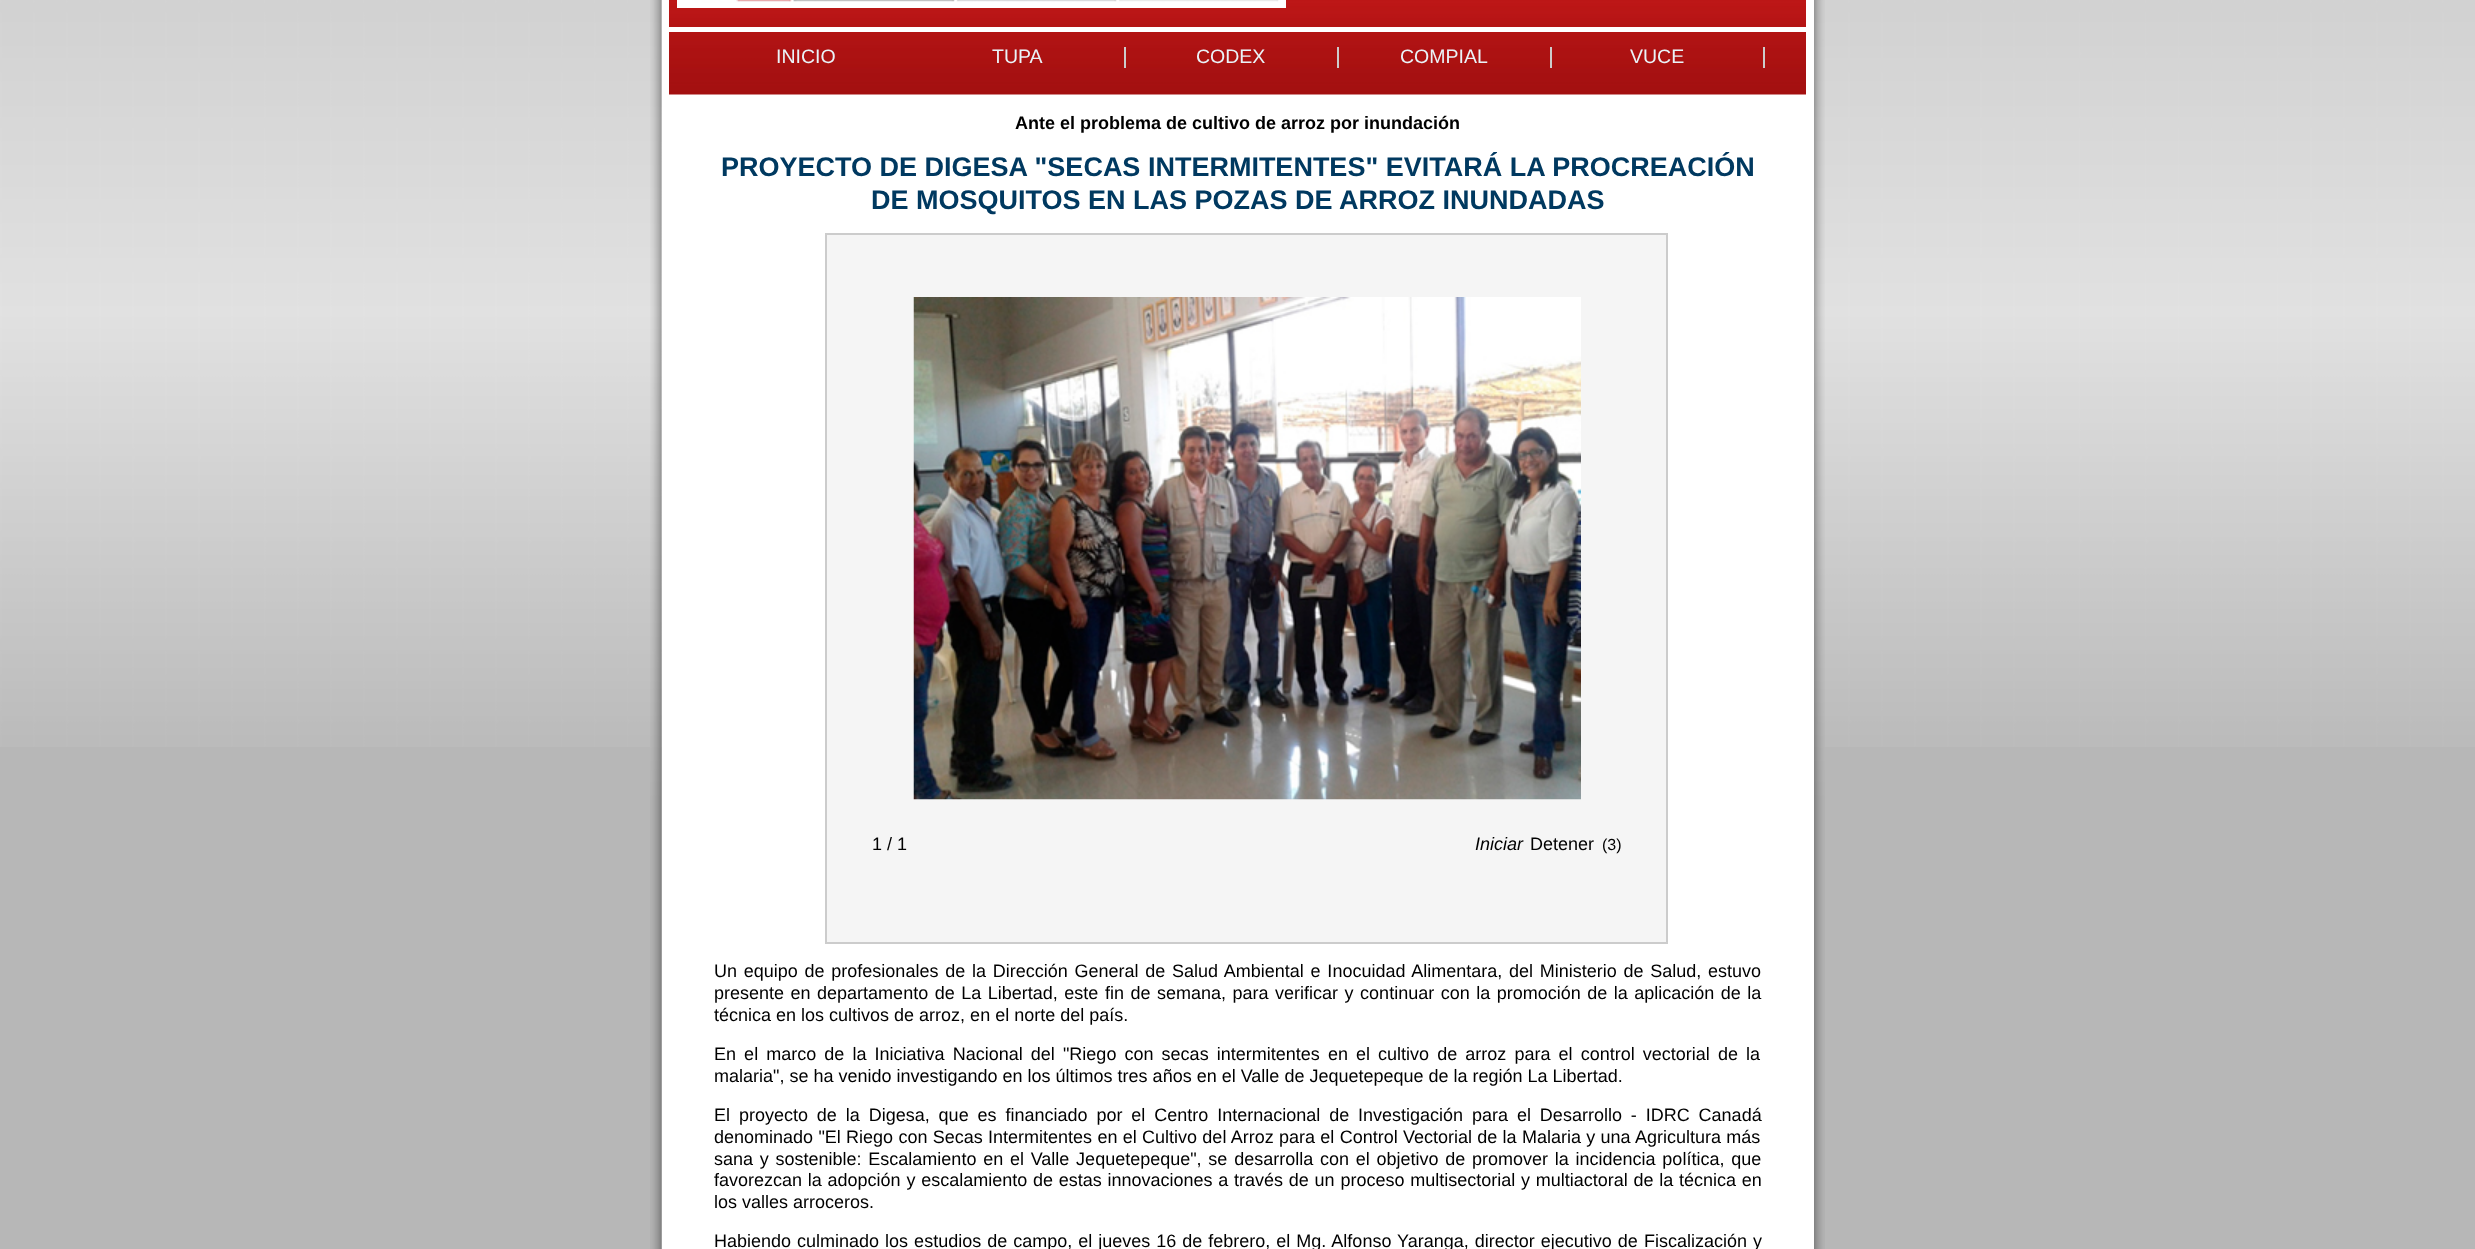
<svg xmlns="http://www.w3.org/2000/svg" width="2475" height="1249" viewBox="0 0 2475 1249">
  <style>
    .t1 { font: 19.5px Liberation Sans; fill: #eaf3f8; }
    .t2 { font: bold 18px Liberation Sans; fill: #000; }
    .t3 { font: bold 27px Liberation Sans; fill: #003960; }
    .t4 { font: 18px Liberation Sans; fill: #000; }
    .t5 { font: italic 18px Liberation Sans; fill: #000; }
    .t6 { font: 16px Liberation Sans; fill: #000; }
  </style>
  <rect width="100%" height="100%" fill="#b7b7b7"/>
  <image x="0" y="0" width="2475" height="747" href="images/1.png"/>
  <image x="650" y="0" width="12" height="1249" href="images/2.png"/>
  <image x="1814" y="0" width="11" height="1249" href="images/3.png"/>
  <rect x="662" y="0" width="1152" height="1249" fill="#fff"/>
  <image x="669" y="0" width="1137" height="95" href="images/4.png"/>
  <rect x="679.5" y="-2.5" width="604" height="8" fill="none" stroke="#fff" stroke-width="5"/>
  <image x="682" y="0" width="599" height="3" href="images/5.png"/>
  <rect x="669" y="27" width="1137" height="5" fill="#fff"/>
  <text x="776" y="63" class="t1">INICIO</text>
  <rect x="1124" y="47" width="2" height="21" fill="#ccc"/>
  <text x="992" y="63" class="t1">TUPA</text>
  <rect x="1337" y="47" width="2" height="21" fill="#ccc"/>
  <text x="1196" y="63" class="t1">CODEX</text>
  <rect x="1550" y="47" width="2" height="21" fill="#ccc"/>
  <text x="1400" y="63" class="t1">COMPIAL</text>
  <rect x="1763" y="47" width="2" height="21" fill="#ccc"/>
  <text x="1630" y="63" class="t1">VUCE</text>
  <text x="1015" y="129" class="t2">Ante el problema de cultivo de arroz por inundación</text>
  <text x="721" y="176" class="t3">PROYECTO DE DIGESA "SECAS INTERMITENTES" EVITARÁ LA PROCREACIÓN</text>
  <text x="871" y="209" class="t3">DE MOSQUITOS EN LAS POZAS DE ARROZ INUNDADAS</text>
  <rect x="826" y="234" width="841" height="709" fill="#f5f5f5" stroke="#ccc" stroke-width="2"/>
  <image x="913" y="297" width="668" height="503" href="images/6.png"/>
  <text x="872" y="850" class="t4">1 / 1</text>
  <text x="1475" y="850" class="t5">Iniciar</text>
  <text x="1530" y="850" class="t4">Detener</text>
  <text x="1602" y="850" class="t6">(3)</text>
  <text x="714" y="977" word-spacing="1.75" class="t4">Un equipo de profesionales de la Dirección General de Salud Ambiental e Inocuidad Alimentara, del Ministerio de Salud, estuvo</text>
  <text x="714" y="999" word-spacing="1.5" class="t4">presente en departamento de La Libertad, este</text>
  <text x="1105" y="999" word-spacing="1.5" class="t4">fin de semana, para verificar y continuar con la promoción de la aplicación de la</text>
  <text x="714" y="1021" class="t4">técnica en los cultivos de arroz, en el norte del país.</text>
  <text x="714" y="1060" word-spacing="3.1" class="t4">En el marco de la Iniciativa Nacional del "Riego con secas intermitentes en el cultivo de arroz para el control vectorial de la</text>
  <text x="714" y="1082" class="t4">malaria", se ha venido investigando en los últimos tres años en el Valle de Jequetepeque de la región La Libertad.</text>
  <text x="714" y="1121" word-spacing="3.9" class="t4">El proyecto de la Digesa, que es financiado por el Centro Internacional de Investigación para el Desarrollo - IDRC Canadá</text>
  <text x="714" y="1143" word-spacing="0.3" class="t4">denominado "El Riego con Secas Intermitentes en el Cultivo del Arroz para el Control Vectorial de la Malaria y una Agricultura más</text>
  <text x="714" y="1165" word-spacing="1.75" class="t4">sana y sostenible: Escalamiento en el Valle Jequetepeque", se desarrolla con el objetivo de promover la incidencia política, que</text>
  <text x="714" y="1186" word-spacing="0.75" class="t4">favorezcan la adopción y escalamiento de estas innovaciones a través de un proceso multisectorial y multiactoral de la técnica en</text>
  <text x="714" y="1208" class="t4">los valles arroceros.</text>
  <text x="714" y="1247" word-spacing="1" class="t4">Habiendo culminado los estudios de campo, el jueves 16 de febrero, el Mg. Alfonso Yaranga, director ejecutivo de Fiscalización y</text>
</svg>
